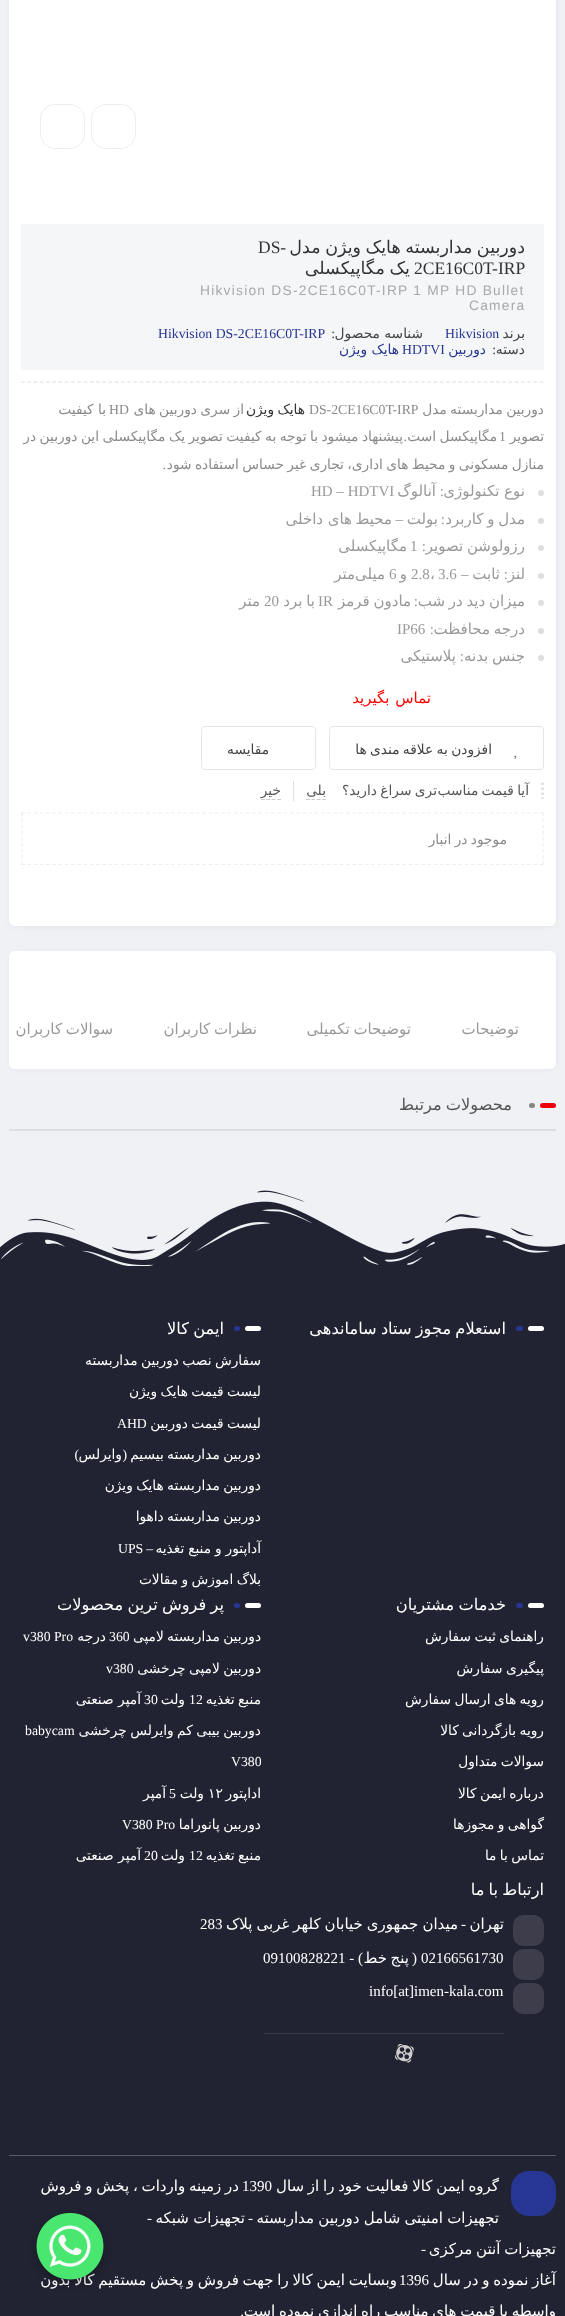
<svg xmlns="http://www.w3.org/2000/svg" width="565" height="2316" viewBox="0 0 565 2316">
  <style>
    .t1 { font: 17.5px DejaVu Sans; direction: rtl; fill: #333; }
    .t2 { font: 17.5px Liberation Serif; fill: #333; }
    .t3 { font: 13.75px Liberation Sans; letter-spacing: 1.25px; fill: #a9a9a9; }
    .t4 { font: 13.75px DejaVu Sans; direction: rtl; fill: #434343; }
    .t5 { font: 13.75px Liberation Serif; fill: #273693; }
    .t6 { font: 13.75px Liberation Serif; direction: rtl; fill: #434343; }
    .t7 { font: 13.75px DejaVu Sans; direction: rtl; fill: #273693; }
    .t8 { font: 13.75px DejaVu Sans; direction: rtl; fill: #898a8b; }
    .t9 { font: 13.75px Liberation Serif; fill: #898a8b; }
    .t10 { font: 13.75px DejaVu Sans; direction: rtl; fill: #333; }
    .t11 { font: 13.75px Liberation Serif; direction: rtl; fill: #898a8b; }
    .t12 { font: 15px DejaVu Sans; direction: rtl; fill: #999; }
    .t13 { font: 15px Liberation Serif; direction: rtl; fill: #999; }
    .t14 { font: 15px Liberation Serif; fill: #999; }
    .t15 { font: 15px DejaVu Sans; fill: #999; }
    .t16 { font: 15px DejaVu Sans; letter-spacing: -0.25px; direction: rtl; fill: #f00; }
    .t17 { font: 13.75px DejaVu Sans; direction: rtl; fill: #555; }
    .t18 { font: 16.25px DejaVu Sans; direction: rtl; fill: #555; }
    .t19 { font: 16.25px DejaVu Sans; direction: rtl; fill: #fff; }
    .t20 { font: 13.75px DejaVu Sans; direction: rtl; fill: #fff; }
    .t21 { font: 13.75px Liberation Serif; fill: #fff; }
    .t22 { font: 13.75px Liberation Serif; direction: rtl; fill: #fff; }
    .t23 { font: 13.75px DejaVu Sans; fill: #fff; }
    .t24 { font: 15px DejaVu Sans; direction: rtl; fill: #fff; }
    .t25 { font: 15px Liberation Serif; direction: rtl; fill: #fff; }
    .t26 { font: 15px Liberation Serif; fill: #fff; }
  </style>
  <rect width="100%" height="100%" fill="#eff1f5"/>
  <rect x="13" y="-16" width="540" height="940" rx="2.5" fill="#0000001a" filter="blur(4.5px)"/>
  <rect x="9" y="-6" width="547" height="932" rx="6" fill="#fff"/>
  <rect x="91.5" y="104.5" width="44" height="44" rx="14.5" fill="none" stroke="#eee"/>
  <rect x="40.5" y="104.5" width="44" height="44" rx="14.5" fill="none" stroke="#eee"/>
  <rect x="21" y="224" width="523" height="146" fill="#f5f6f7"/>
  <text x="525" y="253" word-spacing="-1" class="t1">دوربین مداربسته هایک ویژن مدل</text>
  <text x="258" y="253" class="t2">DS-</text>
  <text x="414" y="274" class="t2">2CE16C0T-IRP</text>
  <text x="410" y="274" word-spacing="-1" class="t1">یک مگاپیکسلی</text>
  <text x="200" y="295" class="t3">Hikvision DS-2CE16C0T-IRP 1 MP HD Bullet</text>
  <text x="469" y="310" class="t3">Camera</text>
  <text x="525" y="338" class="t4">برند</text>
  <text x="445" y="338" class="t5">Hikvision</text>
  <text x="423" y="338" class="t4">شناسه محصول</text>
  <text x="335" y="338" class="t6">:</text>
  <text x="158" y="338" class="t5">Hikvision DS-2CE16C0T-IRP</text>
  <text x="525" y="354" class="t4">دسته</text>
  <text x="496" y="354" class="t6">:</text>
  <text x="486" y="354" class="t7">دوربین</text>
  <text x="402" y="354" class="t5">HDTVI</text>
  <text x="399" y="354" class="t7">هایک ویژن</text>
  <path d="M21 382H544" fill="none" stroke="#ddd" stroke-width="1.2" stroke-dasharray="3.75 2.5"/>
  <text x="544" y="414" word-spacing="-1" class="t8">دوربین مداربسته مدل</text>
  <text x="309" y="414" class="t9">DS-2CE16C0T-IRP</text>
  <text x="305" y="414" word-spacing="-1" class="t10">هایک ویژن</text>
  <text x="244" y="414" word-spacing="-1" class="t8">از سری دوربین های</text>
  <text x="109" y="414" class="t9">HD</text>
  <text x="106" y="414" class="t8">با کیفیت</text>
  <text x="544" y="441" class="t8">تصویر</text>
  <text x="499" y="441" class="t9">1</text>
  <text x="497" y="441" word-spacing="-0.9" class="t8">مگاپیکسل است</text>
  <text x="407" y="441" class="t11">.</text>
  <text x="403" y="441" word-spacing="-0.9" class="t8">پیشنهاد میشود با توجه به کیفیت تصویر یک مگاپیکسلی این دوربین در</text>
  <text x="544" y="469" word-spacing="-1" class="t8">منازل مسکونی و محیط های اداری، تجاری غیر حساس استفاده شود</text>
  <text x="166" y="469" class="t11">.</text>
  <circle cx="541" cy="493" r="3" fill="#dedede"/>
  <text x="525" y="496" class="t12">نوع تکنولوژی</text>
  <text x="444" y="496" class="t13">:</text>
  <text x="436" y="496" class="t12">آنالوگ</text>
  <text x="311" y="496" class="t14">HD – HDTVI</text>
  <circle cx="541" cy="521" r="3" fill="#dedede"/>
  <text x="525" y="524" word-spacing="-1" class="t12">مدل و کاربرد</text>
  <text x="445" y="524" class="t13">:</text>
  <text x="438" y="524" class="t12">بولت</text>
  <text x="403" y="524" class="t13">–</text>
  <text x="392" y="524" class="t12">محیط</text>
  <text x="352" y="524" class="t12">های داخلی</text>
  <circle cx="541" cy="548" r="3" fill="#dedede"/>
  <text x="525" y="551" word-spacing="-1" class="t12">رزولوشن تصویر</text>
  <text x="426" y="551" class="t13">:</text>
  <text x="410" y="551" class="t14">1</text>
  <text x="407" y="551" class="t12">مگاپیکسلی</text>
  <circle cx="541" cy="576" r="3" fill="#dedede"/>
  <text x="525" y="579" class="t12">لنز</text>
  <text x="508" y="579" class="t13">:</text>
  <text x="500" y="579" class="t12">ثابت</text>
  <text x="461" y="579" class="t14">–</text>
  <text x="438" y="579" class="t14">3.6</text>
  <text x="430" y="579" class="t15">،</text>
  <text x="411" y="579" class="t14">2.8</text>
  <text x="407" y="579" class="t12">و</text>
  <text x="389" y="579" class="t14">6</text>
  <text x="385" y="579" class="t12">میلی</text>
  <text x="355" y="579" class="t12">متر</text>
  <circle cx="541" cy="603" r="3" fill="#dedede"/>
  <text x="525" y="606" word-spacing="-1" class="t12">میزان دید در شب</text>
  <text x="418" y="606" class="t13">:</text>
  <text x="411" y="606" word-spacing="-1" class="t12">مادون قرمز</text>
  <text x="318" y="606" class="t14">IR</text>
  <text x="315" y="606" word-spacing="-1" class="t12">با برد</text>
  <text x="264" y="606" class="t14">20</text>
  <text x="260" y="606" class="t12">متر</text>
  <circle cx="541" cy="631" r="3" fill="#dedede"/>
  <text x="525" y="634" word-spacing="-1" class="t12">درجه محافظت</text>
  <text x="434" y="634" class="t13">:</text>
  <text x="397" y="634" class="t14">IP66</text>
  <circle cx="541" cy="658" r="3" fill="#dedede"/>
  <text x="525" y="661" word-spacing="-1" class="t12">جنس بدنه</text>
  <text x="464" y="661" class="t13">:</text>
  <text x="456" y="661" class="t12">پلاستیکی</text>
  <text x="431" y="703" word-spacing="1" class="t16">تماس بگیرید</text>
  <rect x="329.5" y="726.5" width="214" height="43" rx="3.5" fill="none" stroke="#e5e5e5"/>
  <image x="514" y="755" width="3" height="4" href="images/1.png"/>
  <text x="492" y="754" word-spacing="-1" class="t4">افزودن به علاقه مندی ها</text>
  <rect x="201.5" y="726.5" width="114" height="43" rx="3.5" fill="none" stroke="#e5e5e5"/>
  <text x="269" y="754" class="t4">مقایسه</text>
  <path d="M542.5 782.5V785M542.5 787.5V790M542.5 792.5V795M542.5 797.5V799" fill="none" stroke="#ddd" stroke-width="2.5"/>
  <text x="529" y="795" word-spacing="-1" class="t17">آیا قیمت مناسب</text>
  <text x="437" y="795" word-spacing="-1" class="t17">تری سراغ دارید؟</text>
  <path d="M306 799.5H326" fill="none" stroke="#ccc" stroke-width="1.2" stroke-dasharray="3.75 1.66"/>
  <text x="326" y="795" class="t17">بلی</text>
  <rect x="293" y="781" width="1" height="20" fill="#e0e0e0"/>
  <path d="M261 799.5H281" fill="none" stroke="#ccc" stroke-width="1.2" stroke-dasharray="3.75 1.66"/>
  <text x="281" y="795" class="t17">خیر</text>
  <path d="M21 813H544" fill="none" stroke="#eee" stroke-width="1.2" stroke-dasharray="3.75 2.5"/>
  <path d="M543 812.5V865" fill="none" stroke="#eee" stroke-width="1.2" stroke-dasharray="3.75 2.35"/>
  <path d="M21 864.5H544" fill="none" stroke="#eee" stroke-width="1.2" stroke-dasharray="3.75 2.5"/>
  <path d="M22 812.5V865" fill="none" stroke="#eee" stroke-width="1.2" stroke-dasharray="3.75 2.35"/>
  <text x="507" y="844" word-spacing="-1" class="t8">موجود در انبار</text>
  <rect x="13" y="956" width="540" height="110" rx="2.5" fill="#0000001a" filter="blur(4.5px)"/>
  <rect x="9" y="951" width="547" height="118" rx="6" fill="#fff"/>
  <text x="519" y="1034" class="t12">توضیحات</text>
  <text x="411" y="1034" word-spacing="-1" class="t12">توضیحات تکمیلی</text>
  <text x="257" y="1034" word-spacing="-1" class="t12">نظرات کاربران</text>
  <text x="113" y="1034" word-spacing="-1" class="t12">سوالات کاربران</text>
  <rect x="9" y="1129" width="547" height="2" fill="#dcdee1"/>
  <rect x="540" y="1103" width="16" height="5" rx="2.5" fill="#ec000b"/>
  <rect x="529" y="1103" width="6" height="5" rx="2.5" fill="#868686"/>
  <text x="512" y="1110" word-spacing="-1" class="t18">محصولات مرتبط</text>
  <rect x="0" y="1266" width="565" height="1050" fill="#222332"/>
  <image x="0" y="1190" width="565" height="76" href="images/2.png"/>
  <rect x="528" y="1326" width="16" height="5" rx="2.5" fill="#fff"/>
  <rect x="516" y="1326" width="7" height="5" rx="2.5" fill="#273693"/>
  <text x="506" y="1334" word-spacing="-1" class="t19">استعلام مجوز ستاد ساماندهی</text>
  <rect x="245" y="1326" width="16" height="5" rx="2.5" fill="#fff"/>
  <rect x="234" y="1326" width="6" height="5" rx="2.5" fill="#273693"/>
  <text x="224" y="1334" word-spacing="-1" class="t19">ایمن کالا</text>
  <text x="261" y="1365" word-spacing="-1" class="t20">سفارش نصب دوربین مداربسته</text>
  <text x="261" y="1396" word-spacing="-1" class="t20">لیست قیمت هایک ویژن</text>
  <text x="261" y="1428" word-spacing="-1" class="t20">لیست قیمت دوربین</text>
  <text x="117" y="1428" class="t21">AHD</text>
  <text x="261" y="1459" word-spacing="-1" class="t20">دوربین مداربسته بیسیم</text>
  <text x="127" y="1459" class="t22">(</text>
  <text x="122" y="1459" class="t20">وایرلس</text>
  <text x="79" y="1459" class="t22">)</text>
  <text x="261" y="1490" word-spacing="-1" class="t20">دوربین مداربسته هایک ویژن</text>
  <text x="261" y="1521" word-spacing="-1" class="t20">دوربین مداربسته داهوا</text>
  <text x="261" y="1553" word-spacing="-0.5" class="t20">آداپتور و منبع تغذیه</text>
  <text x="153" y="1553" class="t22">–</text>
  <text x="118" y="1553" class="t21">UPS</text>
  <text x="261" y="1584" word-spacing="-1" class="t20">بلاگ اموزش و مقالات</text>
  <rect x="528" y="1603" width="16" height="5" rx="2.5" fill="#fff"/>
  <rect x="516" y="1603" width="7" height="5" rx="2.5" fill="#273693"/>
  <text x="506" y="1610" word-spacing="-1" class="t19">خدمات مشتریان</text>
  <text x="544" y="1641" word-spacing="-1" class="t20">راهنمای ثبت سفارش</text>
  <text x="544" y="1673" word-spacing="-1" class="t20">پیگیری سفارش</text>
  <text x="544" y="1704" word-spacing="-1" class="t20">رویه های ارسال سفارش</text>
  <text x="544" y="1735" word-spacing="-1" class="t20">رویه بازگردانی کالا</text>
  <text x="544" y="1766" word-spacing="-1" class="t20">سوالات متداول</text>
  <text x="544" y="1798" word-spacing="-1" class="t20">درباره ایمن کالا</text>
  <text x="544" y="1829" word-spacing="-1" class="t20">گواهی و مجوزها</text>
  <text x="544" y="1860" word-spacing="-1" class="t20">تماس با ما</text>
  <rect x="245" y="1603" width="16" height="5" rx="2.5" fill="#fff"/>
  <rect x="234" y="1603" width="6" height="5" rx="2.5" fill="#273693"/>
  <text x="224" y="1610" word-spacing="-1" class="t19">پر فروش ترین محصولات</text>
  <text x="261" y="1641" word-spacing="-1" class="t20">دوربین مداربسته لامپی</text>
  <text x="109" y="1641" class="t21">360</text>
  <text x="106" y="1641" class="t20">درجه</text>
  <text x="23" y="1641" class="t21">v380 Pro</text>
  <text x="261" y="1673" word-spacing="-1" class="t20">دوربین لامپی چرخشی</text>
  <text x="106" y="1673" class="t21">v380</text>
  <text x="261" y="1704" word-spacing="-1" class="t20">منبع تغذیه</text>
  <text x="189" y="1704" class="t21">12</text>
  <text x="185" y="1704" class="t20">ولت</text>
  <text x="144" y="1704" class="t21">30</text>
  <text x="141" y="1704" class="t20">آمپر صنعتی</text>
  <text x="261" y="1735" word-spacing="-1" class="t20">دوربین بیبی کم وایرلس چرخشی</text>
  <text x="25" y="1735" class="t21">babycam</text>
  <text x="231" y="1766" class="t21">V380</text>
  <text x="261" y="1798" class="t20">اداپتور</text>
  <text x="208" y="1798" class="t23">۱۲</text>
  <text x="204" y="1798" class="t20">ولت</text>
  <text x="169" y="1798" class="t21">5</text>
  <text x="166" y="1798" class="t20">آمپر</text>
  <text x="261" y="1829" word-spacing="-1" class="t20">دوربین پانوراما</text>
  <text x="122" y="1829" class="t21">V380 Pro</text>
  <text x="261" y="1860" word-spacing="-1" class="t20">منبع تغذیه</text>
  <text x="189" y="1860" class="t21">12</text>
  <text x="185" y="1860" class="t20">ولت</text>
  <text x="144" y="1860" class="t21">20</text>
  <text x="141" y="1860" class="t20">آمپر صنعتی</text>
  <text x="544" y="1895" word-spacing="-1" class="t19">ارتباط با ما</text>
  <rect x="513" y="1915" width="31" height="31" rx="10" fill="#3d3d4b"/>
  <text x="504" y="1929" class="t24">تهران</text>
  <text x="466" y="1929" class="t25">-</text>
  <text x="458" y="1929" word-spacing="-0.75" class="t24">میدان جمهوری خیابان کلهر غربی پلاک</text>
  <text x="200" y="1929" class="t26">283</text>
  <rect x="513" y="1949" width="31" height="31" rx="10" fill="#3d3d4b"/>
  <text x="421" y="1963" class="t26">02166561730</text>
  <text x="417" y="1963" class="t25">(</text>
  <text x="409" y="1963" class="t24">پنج</text>
  <text x="387" y="1963" class="t24">خط</text>
  <text x="363" y="1963" class="t25">) -</text>
  <text x="263" y="1963" class="t26">09100828221</text>
  <rect x="513" y="1983" width="31" height="31" rx="10" fill="#3d3d4b"/>
  <text x="369" y="1996" class="t26">info[at]imen-kala.com</text>
  <rect x="264" y="2033" width="240" height="1" fill="#383947"/>
  <image x="395" y="2044" width="19" height="19" href="images/3.png"/>
  <rect x="9" y="2155" width="547" height="1" fill="#595a65"/>
  <rect x="511" y="2171" width="45" height="45" rx="18" fill="#273693"/>
  <text x="499" y="2191" word-spacing="-1" class="t24">گروه ایمن کالا فعالیت خود را از سال</text>
  <text x="242" y="2191" class="t26">1390</text>
  <text x="239" y="2191" word-spacing="-1" class="t24">در زمینه واردات ، پخش و فروش</text>
  <text x="499" y="2223" word-spacing="-0.5" class="t24">تجهیزات امنیتی شامل دوربین مداربسته</text>
  <text x="253" y="2223" class="t25">-</text>
  <text x="245" y="2223" word-spacing="-0.5" class="t24">تجهیزات شبکه</text>
  <text x="152" y="2223" class="t25">-</text>
  <text x="556" y="2254" word-spacing="-1" class="t24">تجهیزات آنتن مرکزی</text>
  <text x="426" y="2254" class="t25">-</text>
  <text x="556" y="2285" word-spacing="-1" class="t24">آغاز نموده و در سال</text>
  <text x="399" y="2285" class="t26">1396</text>
  <text x="397" y="2285" word-spacing="-1" class="t24">وبسایت ایمن کالا را جهت فروش و پخش مستقیم کالا بدون</text>
  <text x="556" y="2316" word-spacing="-1" class="t24">واسطه با قیمت های مناسب راه اندازی نموده است</text>
  <text x="244" y="2316" class="t25">.</text>
  <rect x="36" y="2216" width="68" height="68" rx="34" fill="#00000040" filter="blur(4px)"/>
  <image x="36" y="2213" width="68" height="67" href="images/4.png"/>
</svg>
